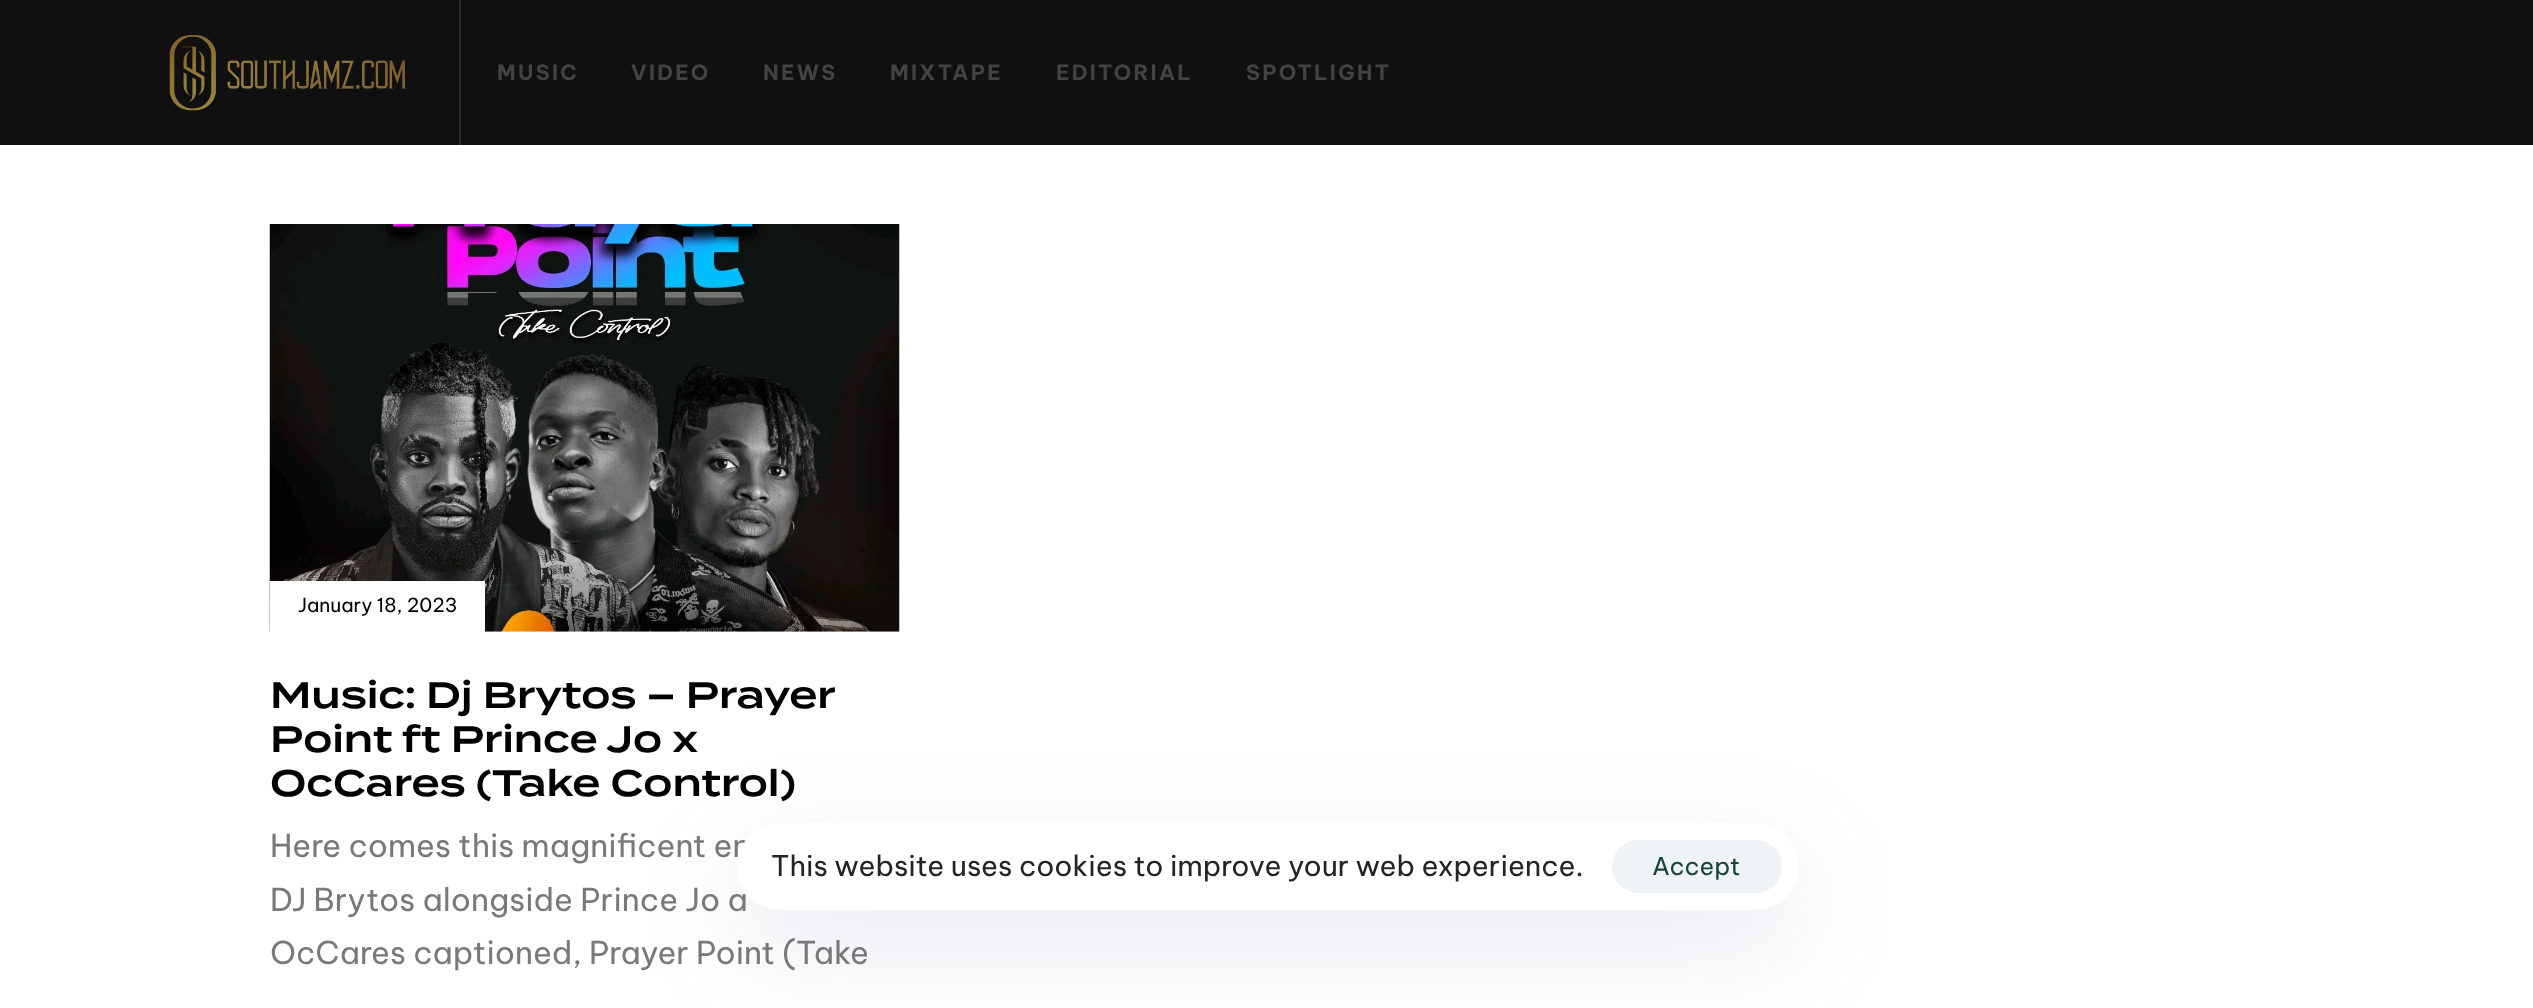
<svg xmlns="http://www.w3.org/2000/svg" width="2533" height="1008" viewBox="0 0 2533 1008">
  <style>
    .t1 { font: bold 21px Be Vietnam Pro; letter-spacing: 2.25px; fill: #434343; }
    .t2 { font: 19.25px Be Vietnam Pro; fill: #000; }
    .t3 { font: 600 36.75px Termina; fill: #000; }
    .t4 { font: 31.5px Be Vietnam Pro; fill: #797979; }
    .t5 { font: 28.35px Be Vietnam Pro; fill: #242424; }
    .t6 { font: 24.5px Be Vietnam Pro; fill: #184341; }
  </style>
  <rect width="100%" height="100%" fill="#fff"/>
  <rect x="0" y="0" width="2533" height="145" fill="#101010"/>
  <rect x="459" y="0" width="2" height="145" fill="#2a2a2a"/>
  <image x="169" y="35" width="237" height="76" href="images/1.png"/>
  <text x="497" y="80" class="t1">MUSIC</text>
  <text x="631" y="80" class="t1">VIDEO</text>
  <text x="763" y="80" class="t1">NEWS</text>
  <text x="890" y="80" class="t1">MIXTAPE</text>
  <text x="1056" y="80" class="t1">EDITORIAL</text>
  <text x="1246" y="80" class="t1">SPOTLIGHT</text>
  <image x="269" y="224" width="631" height="408" href="images/2.png"/>
  <rect x="270" y="581" width="215" height="51" fill="#fff"/>
  <text x="298" y="612" class="t2">January 18, 2023</text>
  <text x="270" y="708" class="t3">Music: Dj Brytos – Prayer</text>
  <text x="270" y="752" class="t3">Point ft Prince Jo x</text>
  <text x="270" y="796" class="t3">OcCares (Take Control)</text>
  <text x="270" y="857" class="t4">Here comes this magnificent en</text>
  <text x="270" y="911" class="t4">DJ Brytos alongside Prince Jo a</text>
  <text x="270" y="964" class="t4">OcCares captioned, Prayer Point (Take</text>
  <rect x="737" y="858" width="1062" height="87" rx="43.5" fill="#5c6b9526" filter="blur(52.5px)"/>
  <rect x="737" y="823" width="1062" height="87" rx="43.5" fill="#fff"/>
  <text x="771" y="876" class="t5">This website uses cookies to improve your web experience.</text>
  <rect x="1612" y="840" width="170" height="53" rx="26.5" fill="#eff3f5"/>
  <text x="1652" y="875" class="t6">Accept</text>
</svg>
